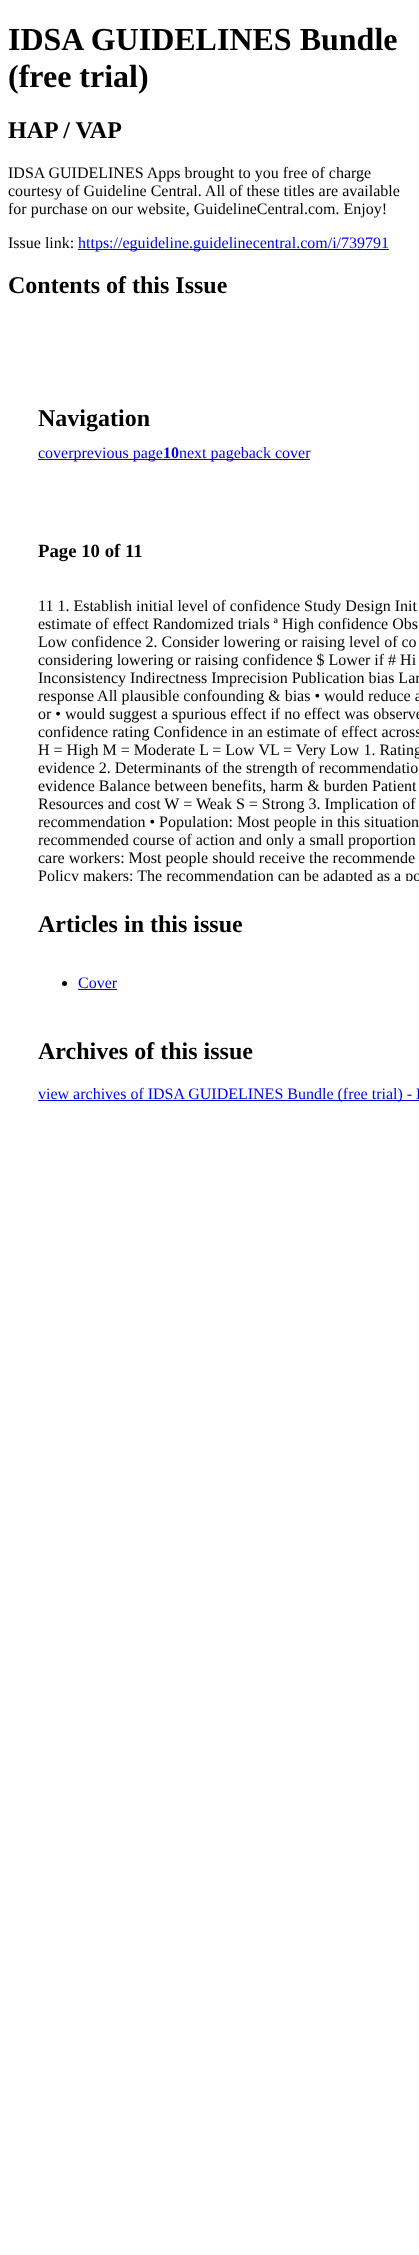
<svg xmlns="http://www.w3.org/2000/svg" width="419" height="2255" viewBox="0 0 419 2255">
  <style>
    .t1 { font: bold 32px Liberation Serif; fill: #000; }
    .t2 { font: bold 24px Liberation Serif; fill: #000; }
    .t3 { font: 16px Liberation Serif; fill: #000; }
    .t4 { font: 16px Liberation Serif; fill: #00e; }
    .t5 { font: bold 16px Liberation Serif; fill: #00e; }
    .t6 { font: bold 18.75px Liberation Serif; fill: #000; }
  </style>
  <defs>
    <clipPath id="clip1"><rect x="38" y="581" width="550" height="300"/></clipPath>
  </defs>
  <rect width="100%" height="100%" fill="#fff"/>
  <text x="8" y="50" class="t1">IDSA GUIDELINES Bundle</text>
  <text x="8" y="87" class="t1">(free trial)</text>
  <text x="8" y="138" class="t2">HAP / VAP</text>
  <text x="8" y="178" class="t3">IDSA GUIDELINES Apps brought to you free of charge</text>
  <text x="8" y="196" class="t3">courtesy of Guideline Central. All of these titles are available</text>
  <text x="8" y="214" class="t3">for purchase on our website, GuidelineCentral.com. Enjoy!</text>
  <text x="8" y="248" class="t3">Issue link:</text>
  <rect x="78" y="249" width="311" height="1" fill="#00e"/>
  <text x="78" y="248" class="t4">https://eguideline.guidelinecentral.com/i/739791</text>
  <text x="8" y="293" class="t2">Contents of this Issue</text>
  <text x="38" y="426" class="t2">Navigation</text>
  <rect x="38" y="459" width="272" height="1" fill="#00e"/>
  <text x="38" y="458" class="t4">coverprevious page</text>
  <text x="163" y="458" class="t5">10</text>
  <text x="179" y="458" class="t4">next pageback cover</text>
  <text x="38" y="557" class="t6">Page 10 of 11</text>
  <text x="38" y="611" class="t3">11 1. Establish initial level of confidence Study Design Init</text>
  <text x="38" y="629" class="t3">estimate of effect Randomized trials ª High confidence Obs</text>
  <text x="38" y="647" class="t3">Low confidence 2. Consider lowering or raising level of co</text>
  <text x="38" y="665" class="t3">considering lowering or raising confidence $ Lower if # Hi</text>
  <text x="38" y="683" class="t3">Inconsistency Indirectness Imprecision Publication bias Lar</text>
  <text x="38" y="701" class="t3">response All plausible confounding &amp; bias • would reduce a</text>
  <text x="38" y="719" class="t3">or • would suggest a spurious effect if no effect was observe</text>
  <text x="38" y="737" class="t3">confidence rating Confidence in an estimate of effect across</text>
  <text x="38" y="755" class="t3">H = High M = Moderate L = Low VL = Very Low 1. Rating</text>
  <text x="38" y="773" class="t3">evidence 2. Determinants of the strength of recommendatio</text>
  <text x="38" y="791" class="t3">evidence Balance between benefits, harm &amp; burden Patient</text>
  <text x="38" y="809" class="t3">Resources and cost W = Weak S = Strong 3. Implication of</text>
  <text x="38" y="827" class="t3">recommendation • Population: Most people in this situation</text>
  <text x="38" y="845" class="t3">recommended course of action and only a small proportion</text>
  <text x="38" y="863" class="t3">care workers: Most people should receive the recommende</text>
  <g clip-path="url(#clip1)">
    <text x="38" y="881" class="t3">Policy makers: The recommendation can be adapted as a po</text>
  </g>
  <text x="38" y="932" class="t2">Articles in this issue</text>
  <circle cx="64.5" cy="983.5" r="2.5" fill="#000"/>
  <text x="78" y="988" class="t4">Cover</text>
  <rect x="78" y="989" width="39" height="1" fill="#00e"/>
  <text x="38" y="1059" class="t2">Archives of this issue</text>
  <rect x="38" y="1100" width="381" height="1" fill="#00e"/>
  <text x="38" y="1099" class="t4">view archives of IDSA GUIDELINES Bundle (free trial) - H</text>
</svg>
